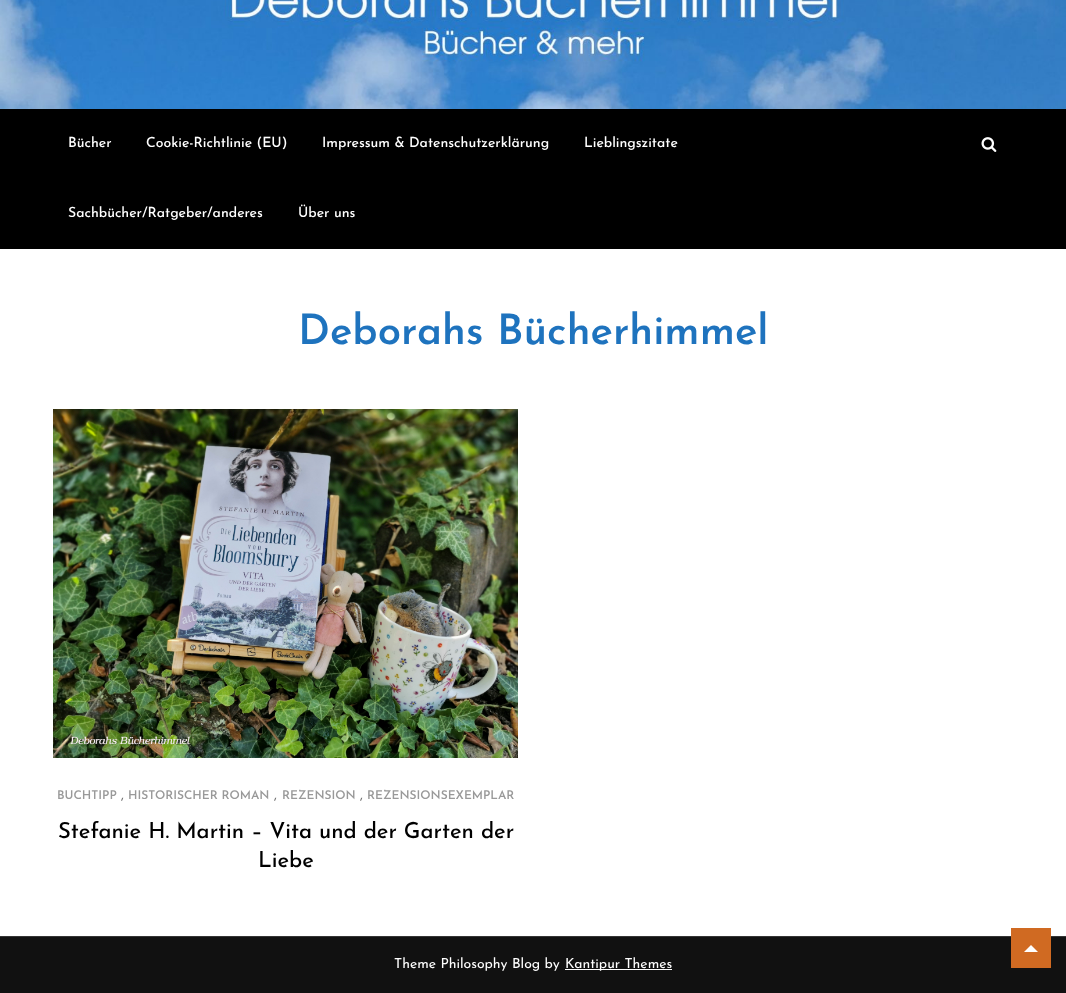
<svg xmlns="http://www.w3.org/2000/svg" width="1066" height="993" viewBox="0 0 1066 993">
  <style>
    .t1 { font: 500 14px Josefin Sans; fill: #fff; }
    .t2 { font: 600 42px Josefin Sans; fill: #1e73be; }
    .t3 { font: 600 12px Josefin Sans; fill: #999; }
    .t4 { font: 14px Josefin Sans; fill: #6f6f6f; }
    .t5 { font: 500 22px Josefin Sans; fill: #000; }
    .t6 { font: 14px Josefin Sans; fill: #fff; }
  </style>
  <rect width="100%" height="100%" fill="#fff"/>
  <image x="0" y="0" width="1066" height="109" href="images/1.png"/>
  <rect x="0" y="109" width="1066" height="140" fill="#000"/>
  <text x="68" y="147" class="t1">Bücher</text>
  <text x="146" y="147" class="t1">Cookie-Richtlinie (EU)</text>
  <text x="322" y="147" class="t1">Impressum &amp; Datenschutzerklärung</text>
  <text x="584" y="147" class="t1">Lieblingszitate</text>
  <text x="68" y="217" class="t1">Sachbücher/Ratgeber/anderes</text>
  <text x="298" y="217" class="t1">Über uns</text>
  <image x="981" y="137" width="16" height="15" href="images/2.png"/>
  <text x="298" y="344" class="t2">Deborahs Bücherhimmel</text>
  <image x="53" y="409" width="465" height="349" href="images/3.png"/>
  <text x="57" y="799" class="t3">BUCHTIPP</text>
  <text x="121" y="799" class="t4">,</text>
  <text x="128" y="799" class="t3">HISTORISCHER ROMAN</text>
  <text x="274" y="799" class="t4">,</text>
  <text x="282" y="799" class="t3">REZENSION</text>
  <text x="360" y="799" class="t4">,</text>
  <text x="367" y="799" class="t3">REZENSIONSEXEMPLAR</text>
  <text x="58" y="838" class="t5">Stefanie H. Martin – Vita und der Garten der</text>
  <text x="258" y="867" class="t5">Liebe</text>
  <rect x="0" y="937" width="1066" height="56" fill="#111"/>
  <rect x="0" y="936" width="1066" height="1" fill="#353535"/>
  <text x="394" y="968" class="t6">Theme Philosophy Blog by</text>
  <rect x="565" y="969" width="107" height="1" fill="#fff"/>
  <text x="565" y="968" class="t6">Kantipur Themes</text>
  <rect x="1011" y="928" width="40" height="40" fill="#d06a22"/>
  <path d="M1038 952H1024L1031 945Z" fill="#fff"/>
</svg>
